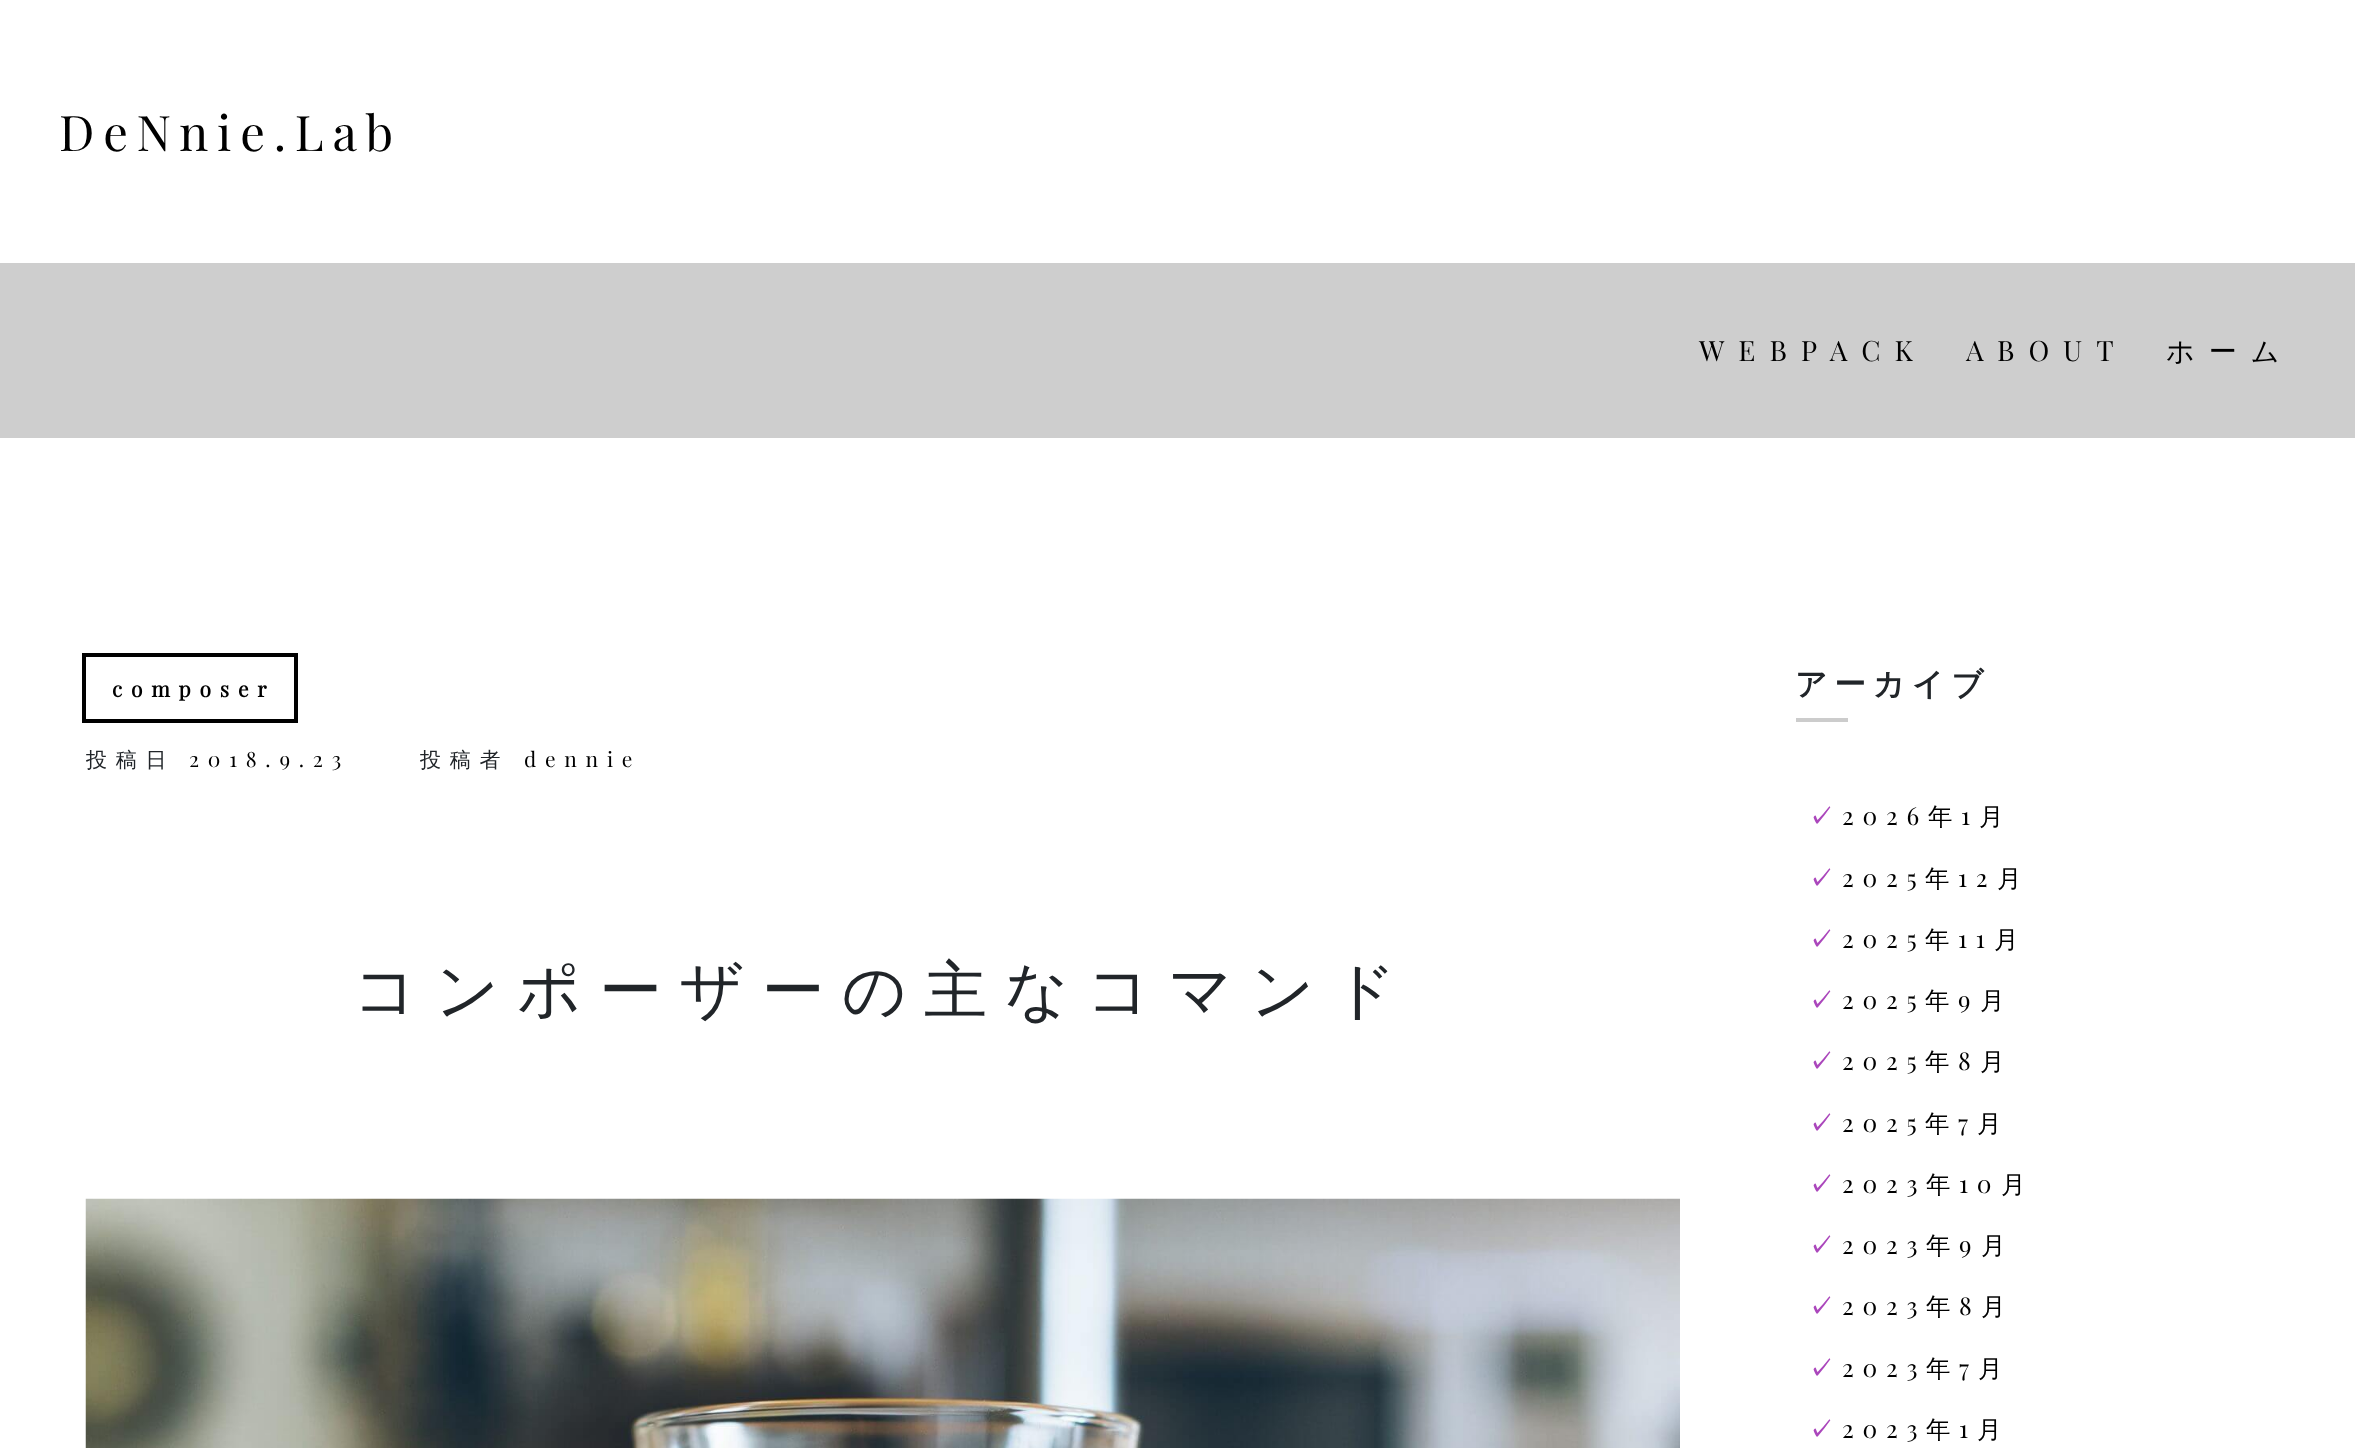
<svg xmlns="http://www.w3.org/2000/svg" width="2355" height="1448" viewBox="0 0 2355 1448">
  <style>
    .t1 { font: 49px Playfair Display; letter-spacing: 8.75px; fill: #000; }
    .t2 { font: 28px Playfair Display; letter-spacing: 14px; fill: #000; }
    .t3 { font: 500 28px WenQuanYi Zen Hei; letter-spacing: 14px; fill: #000; }
    .t4 { font: bold 21px Playfair Display; letter-spacing: 8.75px; fill: #000; }
    .t5 { font: 500 21px WenQuanYi Zen Hei; letter-spacing: 8.75px; fill: #212529; }
    .t6 { font: 21px Playfair Display; letter-spacing: 8.75px; fill: #000; }
    .t7 { font: 500 63px WenQuanYi Zen Hei; letter-spacing: 17.5px; fill: #212529; }
    .t8 { font: bold 31.5px WenQuanYi Zen Hei; letter-spacing: 7px; fill: #212529; }
    .t9 { font: bold 24.5px IPAPGothic; letter-spacing: 8.75px; fill: #ab47bc; }
    .t10 { font: 24.5px Playfair Display; letter-spacing: 8.75px; fill: #000; }
    .t11 { font: 500 24.5px WenQuanYi Zen Hei; letter-spacing: 8.75px; fill: #000; }
  </style>
  <rect width="100%" height="100%" fill="#fff"/>
  <text x="59" y="151" class="t1">DeNnie.Lab</text>
  <rect x="0" y="263" width="2355" height="175" fill="#cecece"/>
  <text x="1699" y="361" class="t2">WEBPACK</text>
  <text x="1966" y="361" class="t2">ABOUT</text>
  <text x="2166" y="361" class="t3">ホーム</text>
  <text x="112" y="697" class="t4">composer</text>
  <rect x="84" y="655" width="212" height="66" fill="none" stroke="#000" stroke-width="4"/>
  <text x="86" y="767" class="t5">投稿日</text>
  <text x="189" y="767" class="t6">2018.9.23</text>
  <text x="420" y="767" class="t5">投稿者</text>
  <text x="524" y="767" class="t6">dennie</text>
  <text x="353" y="1012" class="t7">コンポーザーの主なコマンド</text>
  <image x="85" y="1198" width="1595" height="250" href="images/1.png"/>
  <text x="1795" y="695" class="t8">アーカイブ</text>
  <rect x="1796" y="718" width="52" height="4" fill="#ccc"/>
  <text x="1808" y="825" class="t9">✓</text>
  <text x="1842" y="825" class="t10">2026</text>
  <text x="1928" y="825" class="t11">年</text>
  <text x="1961" y="825" class="t10">1</text>
  <text x="1979" y="825" class="t11">月</text>
  <text x="1808" y="887" class="t9">✓</text>
  <text x="1842" y="887" class="t10">2025</text>
  <text x="1925" y="887" class="t11">年</text>
  <text x="1958" y="887" class="t10">12</text>
  <text x="1997" y="887" class="t11">月</text>
  <text x="1808" y="948" class="t9">✓</text>
  <text x="1842" y="948" class="t10">2025</text>
  <text x="1925" y="948" class="t11">年</text>
  <text x="1958" y="948" class="t10">11</text>
  <text x="1994" y="948" class="t11">月</text>
  <text x="1808" y="1009" class="t9">✓</text>
  <text x="1842" y="1009" class="t10">2025</text>
  <text x="1925" y="1009" class="t11">年</text>
  <text x="1958" y="1009" class="t10">9</text>
  <text x="1980" y="1009" class="t11">月</text>
  <text x="1808" y="1070" class="t9">✓</text>
  <text x="1842" y="1070" class="t10">2025</text>
  <text x="1925" y="1070" class="t11">年</text>
  <text x="1958" y="1070" class="t10">8</text>
  <text x="1980" y="1070" class="t11">月</text>
  <text x="1808" y="1132" class="t9">✓</text>
  <text x="1842" y="1132" class="t10">2025</text>
  <text x="1925" y="1132" class="t11">年</text>
  <text x="1958" y="1132" class="t10">7</text>
  <text x="1977" y="1132" class="t11">月</text>
  <text x="1808" y="1193" class="t9">✓</text>
  <text x="1842" y="1193" class="t10">2023</text>
  <text x="1926" y="1193" class="t11">年</text>
  <text x="1959" y="1193" class="t10">10</text>
  <text x="2001" y="1193" class="t11">月</text>
  <text x="1808" y="1254" class="t9">✓</text>
  <text x="1842" y="1254" class="t10">2023</text>
  <text x="1926" y="1254" class="t11">年</text>
  <text x="1959" y="1254" class="t10">9</text>
  <text x="1981" y="1254" class="t11">月</text>
  <text x="1808" y="1315" class="t9">✓</text>
  <text x="1842" y="1315" class="t10">2023</text>
  <text x="1926" y="1315" class="t11">年</text>
  <text x="1959" y="1315" class="t10">8</text>
  <text x="1981" y="1315" class="t11">月</text>
  <text x="1808" y="1377" class="t9">✓</text>
  <text x="1842" y="1377" class="t10">2023</text>
  <text x="1926" y="1377" class="t11">年</text>
  <text x="1959" y="1377" class="t10">7</text>
  <text x="1978" y="1377" class="t11">月</text>
  <text x="1808" y="1438" class="t9">✓</text>
  <text x="1842" y="1438" class="t10">2023</text>
  <text x="1926" y="1438" class="t11">年</text>
  <text x="1959" y="1438" class="t10">1</text>
  <text x="1977" y="1438" class="t11">月</text>
</svg>
